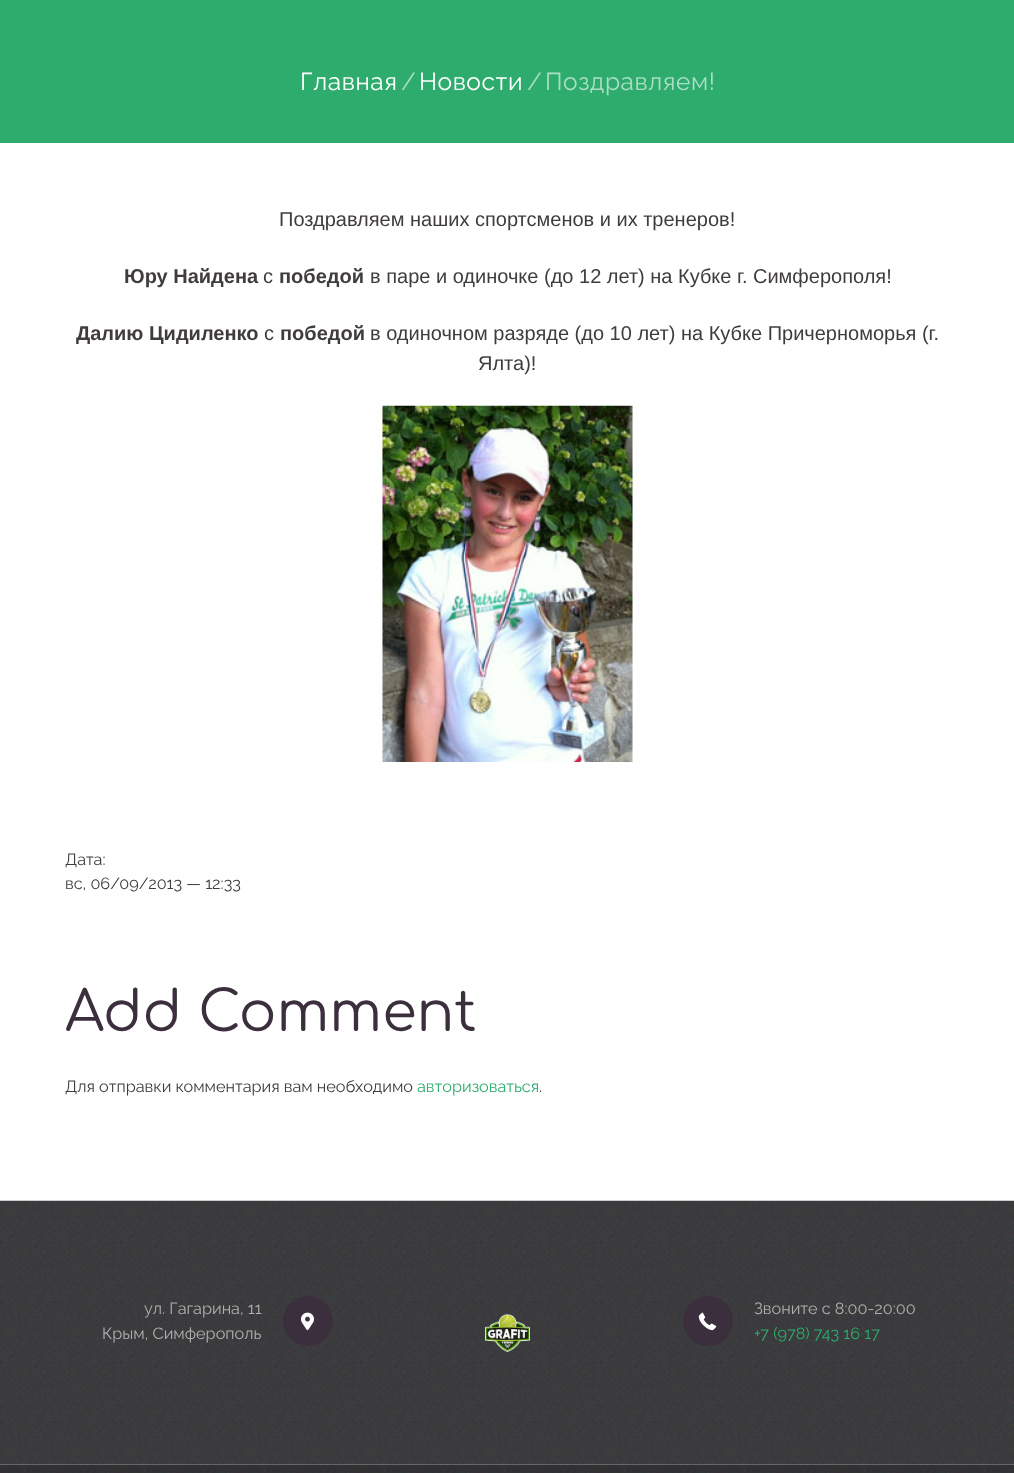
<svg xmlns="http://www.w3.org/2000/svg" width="1014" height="1473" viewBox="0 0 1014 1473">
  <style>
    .t1 { font: 24.5px Raleway; letter-spacing: 0.6px; fill: #fff; }
    .t2 { font: 24.5px Raleway; fill: #abdec5; }
    .t3 { font: 24.5px Raleway; letter-spacing: 0.6px; fill: #abdec5; }
    .t4 { font: 20px Liberation Sans; fill: #3f3b3f; }
    .t5 { font: bold 20px Liberation Sans; fill: #3f3b3f; }
    .t6 { font: 16.25px Raleway; fill: #3f3b3f; }
    .t7 { font: 55.75px Comfortaa; fill: #3c2f3d; }
    .t8 { font: 16.25px Raleway; fill: #2eac6d; }
    .t9 { font: 16.25px Raleway; fill: #b1b0af; }
  </style>
  <rect width="100%" height="100%" fill="#fff"/>
  <rect x="0" y="0" width="1014" height="143" fill="#2eac6d"/>
  <text x="300" y="90" class="t1">Главная</text>
  <text x="401" y="90" class="t2">/</text>
  <text x="419" y="90" class="t1">Новости</text>
  <text x="527" y="90" class="t2">/</text>
  <text x="545" y="90" class="t3">Поздравляем!</text>
  <text x="279" y="226" class="t4">Поздравляем наших спортсменов и их тренеров!</text>
  <text x="124" y="283" class="t5">Юру Найдена</text>
  <text x="263" y="283" class="t4">с</text>
  <text x="279" y="283" class="t5">победой</text>
  <text x="370" y="283" class="t4">в паре и одиночке (до 12 лет) на Кубке г. Симферополя!</text>
  <text x="76" y="340" class="t5">Далию Цидиленко</text>
  <text x="264" y="340" class="t4">с</text>
  <text x="280" y="340" class="t5">победой</text>
  <text x="370" y="340" class="t4">в одиночном разряде (до 10 лет) на Кубке Причерноморья (г.</text>
  <text x="478" y="370" class="t4">Ялта)!</text>
  <image x="382" y="405" width="251" height="357" href="images/1.png"/>
  <text x="65" y="865" class="t6">Дата:</text>
  <text x="65" y="889" class="t6">вс, 06/09/2013 — 12:33</text>
  <text x="65" y="1031" class="t7">Add Comment</text>
  <text x="65" y="1092" class="t6">Для отправки комментария вам необходимо</text>
  <text x="417" y="1092" class="t8">авторизоваться</text>
  <text x="539" y="1092" class="t6">.</text>
  <image x="0" y="1200" width="1014" height="265" href="images/2.png"/>
  <text x="144" y="1314" class="t9">ул. Гагарина, 11</text>
  <circle cx="308" cy="1321" r="25" fill="#3c2f3d"/>
  <image x="301" y="1312" width="13" height="19" href="images/3.png"/>
  <text x="102" y="1339" class="t9">Крым, Симферополь</text>
  <image x="485" y="1314" width="45" height="38" href="images/4.png"/>
  <circle cx="708" cy="1321" r="25" fill="#3c2f3d"/>
  <image x="698" y="1312" width="19" height="19" href="images/5.png"/>
  <text x="754" y="1314" class="t9">Звоните с 8:00-20:00</text>
  <text x="754" y="1339" class="t8">+7 (978) 743 16 17</text>
  <image x="0" y="1464" width="1014" height="9" href="images/6.png"/>
</svg>
